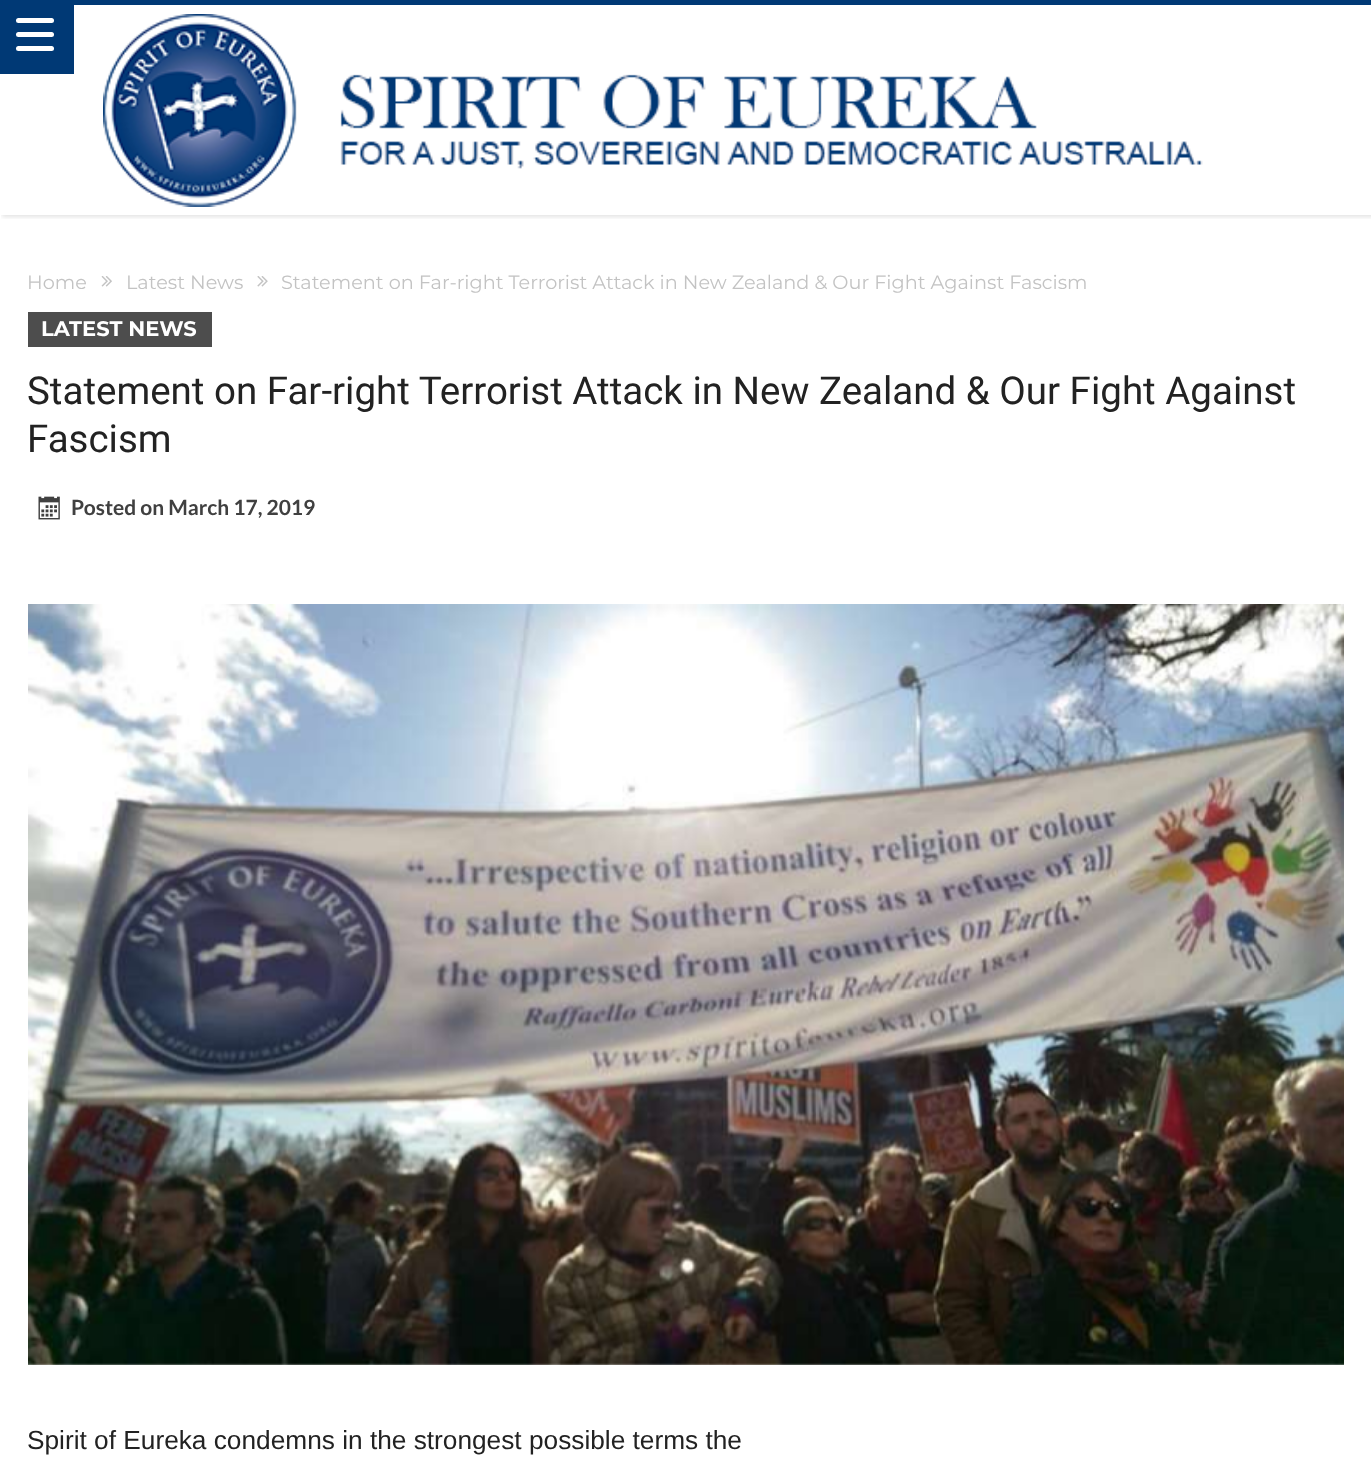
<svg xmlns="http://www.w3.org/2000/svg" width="1371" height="1476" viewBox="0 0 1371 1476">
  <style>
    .t1 { font: 19.25px Montserrat; fill: #c3c3c3; }
    .t2 { font: bold 21px Montserrat; fill: #fff; }
    .t3 { font: 38.5px Roboto; fill: #222; }
    .t4 { font: bold 21px Lato; fill: #404040; }
    .t5 { font: 26.25px Liberation Sans; fill: #222; }
  </style>
  <defs>
    <clipPath id="clip1"><rect x="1" y="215" width="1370" height="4"/></clipPath>
  </defs>
  <rect width="100%" height="100%" fill="#fff"/>
  <rect x="74" y="0" width="1297" height="5" fill="#003975"/>
  <g clip-path="url(#clip1)">
    <rect x="2" y="7" width="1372" height="210" fill="#0000001c" filter="blur(2px)"/>
  </g>
  <image x="103" y="14" width="1100" height="193" href="images/1.png"/>
  <rect x="0" y="0" width="74" height="74" fill="#003975"/>
  <rect x="16" y="18" width="38" height="5" rx="2.5" fill="#fff"/>
  <rect x="16" y="32" width="38" height="5" rx="2.5" fill="#fff"/>
  <rect x="16" y="46" width="38" height="5" rx="2.5" fill="#fff"/>
  <text x="27" y="289" class="t1">Home</text>
  <image x="101" y="276" width="11" height="11" href="images/2.png"/>
  <text x="126" y="289" class="t1">Latest News</text>
  <image x="257" y="276" width="11" height="11" href="images/3.png"/>
  <text x="281" y="289" class="t1">Statement on Far-right Terrorist Attack in New Zealand &amp; Our Fight Against Fascism</text>
  <rect x="28" y="312" width="184" height="35" fill="#4d4d4d"/>
  <text x="41" y="336" class="t2">LATEST NEWS</text>
  <text x="27" y="404" class="t3">Statement on Far-right Terrorist Attack in New Zealand &amp; Our Fight Against</text>
  <text x="27" y="452" class="t3">Fascism</text>
  <image x="38" y="496" width="22" height="24" href="images/4.png"/>
  <text x="71" y="515" class="t4">Posted on March 17, 2019</text>
  <image x="28" y="604" width="1316" height="761" href="images/5.png"/>
  <text x="27" y="1449" class="t5">Spirit of Eureka condemns in the strongest possible terms the</text>
</svg>
